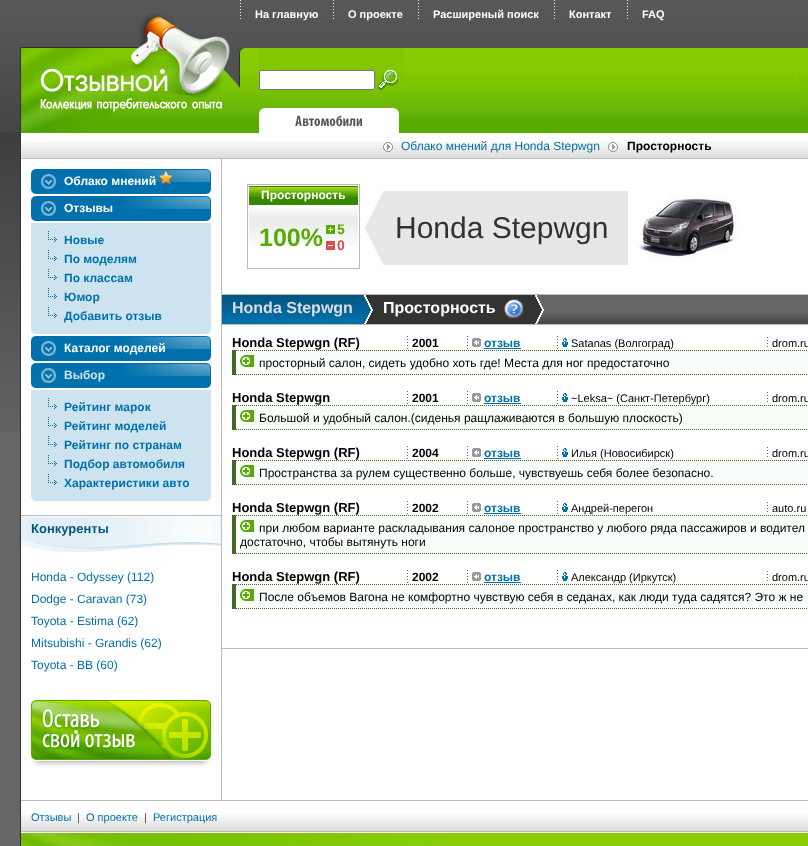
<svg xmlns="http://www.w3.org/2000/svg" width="808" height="846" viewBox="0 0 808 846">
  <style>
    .t1 { font: bold 11px Liberation Sans; fill: #fff; }
    .t2 { font: 12px Liberation Sans; fill: #0071ac; }
    .t3 { font: bold 12px Liberation Sans; fill: #000; }
    .t4 { font: bold 12px Liberation Sans; fill: #fff; }
    .t5 { font: bold 12px Liberation Sans; fill: #0071ac; }
    .t6 { font: bold 12px Liberation Sans; fill: #cde3ef; }
    .t7 { font: bold 13px Liberation Sans; fill: #015683; }
    .t8 { font: bold 25px Liberation Sans; fill: #58ab01; }
    .t9 { font: bold 14px Liberation Sans; fill: #58ab01; }
    .t10 { font: bold 14px Liberation Sans; fill: #d35151; }
    .t11 { font: 30px Liberation Sans; fill: #333; }
    .t12 { font: bold 16px Liberation Sans; fill: #ddd; }
    .t13 { font: bold 16px Liberation Sans; fill: #fff; }
    .t14 { font: bold 13px Liberation Sans; fill: #000; }
    .t15 { font: 11px Liberation Sans; fill: #000; }
    .t16 { font: 12px Liberation Sans; fill: #000; }
    .t17 { font: 11px Liberation Sans; fill: #0071ac; }
    .t18 { font: 11px Liberation Sans; fill: #555; }
  </style>
  <rect width="100%" height="100%" fill="#666"/>
  <image x="0" y="0" width="808" height="433" href="images/1.png"/>
  <image x="20" y="13" width="210" height="35" href="images/2.png"/>
  <image x="240" y="0" width="1" height="19" href="images/3.png"/>
  <text x="255" y="18" class="t1">На главную</text>
  <image x="333" y="0" width="1" height="19" href="images/4.png"/>
  <text x="348" y="18" class="t1">О проекте</text>
  <image x="418" y="0" width="1" height="19" href="images/4.png"/>
  <text x="433" y="18" class="t1">Расширеный поиск</text>
  <image x="554" y="0" width="1" height="19" href="images/3.png"/>
  <text x="569" y="18" class="t1">Контакт</text>
  <image x="627" y="0" width="1" height="19" href="images/4.png"/>
  <text x="642" y="18" class="t1">FAQ</text>
  <rect x="20" y="48" width="1" height="798" fill="#333"/>
  <rect x="21" y="121" width="787" height="12" fill="#56aa00"/>
  <image x="106" y="48" width="702" height="73" href="images/5.png"/>
  <image x="21" y="48" width="224" height="84" href="images/6.png"/>
  <image x="259" y="48" width="145" height="35" href="images/7.png"/>
  <rect x="259.5" y="70.5" width="115" height="19" rx="1.5" fill="#fff" stroke="#767676"/>
  <image x="378" y="69" width="20" height="21" href="images/8.png"/>
  <image x="799" y="73" width="9" height="49" href="images/9.png"/>
  <image x="259" y="108" width="140" height="25" href="images/10.png"/>
  <rect x="21" y="133" width="787" height="681" fill="#fff"/>
  <image x="21" y="141" width="787" height="18" href="images/11.png"/>
  <image x="383" y="142" width="10" height="10" href="images/12.png"/>
  <text x="401" y="150" class="t2">Облако мнений для Honda Stepwgn</text>
  <image x="608" y="142" width="10" height="10" href="images/12.png"/>
  <text x="627" y="150" class="t3">Просторность</text>
  <rect x="221" y="159" width="1" height="642" fill="#bbb"/>
  <rect x="21" y="800" width="787" height="1" fill="#bbb"/>
  <rect x="21" y="515" width="200" height="1" fill="#bbb"/>
  <rect x="56" y="169" width="68" height="25" fill="#0071ac"/>
  <image x="124" y="169" width="87" height="25" href="images/13.png"/>
  <image x="31" y="169" width="25" height="25" href="images/14.png"/>
  <text x="64" y="185" class="t4">Облако мнений</text>
  <image x="159" y="171" width="14" height="14" href="images/15.png"/>
  <rect x="56" y="196" width="68" height="25" fill="#0071ac"/>
  <image x="124" y="196" width="87" height="25" href="images/13.png"/>
  <image x="31" y="196" width="25" height="25" href="images/14.png"/>
  <text x="64" y="212" class="t4">Отзывы</text>
  <rect x="31" y="223" width="180" height="111" fill="#cde3ef"/>
  <image x="31" y="329" width="180" height="5" href="images/16.png"/>
  <image x="48" y="231" width="9" height="11" href="images/17.png"/>
  <text x="64" y="244" class="t5">Новые</text>
  <image x="48" y="250" width="9" height="11" href="images/17.png"/>
  <text x="64" y="263" class="t5">По моделям</text>
  <image x="48" y="269" width="9" height="11" href="images/17.png"/>
  <text x="64" y="282" class="t5">По классам</text>
  <image x="48" y="288" width="9" height="11" href="images/17.png"/>
  <text x="64" y="301" class="t5">Юмор</text>
  <image x="48" y="307" width="9" height="11" href="images/17.png"/>
  <text x="64" y="320" class="t5">Добавить отзыв</text>
  <rect x="56" y="336" width="68" height="25" fill="#0071ac"/>
  <image x="124" y="336" width="87" height="25" href="images/13.png"/>
  <image x="31" y="336" width="25" height="25" href="images/14.png"/>
  <text x="64" y="352" class="t4">Каталог моделей</text>
  <rect x="56" y="363" width="68" height="25" fill="#0071ac"/>
  <image x="124" y="363" width="87" height="25" href="images/13.png"/>
  <image x="31" y="363" width="25" height="25" href="images/14.png"/>
  <text x="64" y="379" class="t6">Выбор</text>
  <rect x="31" y="390" width="180" height="111" fill="#cde3ef"/>
  <image x="31" y="496" width="180" height="5" href="images/16.png"/>
  <image x="48" y="398" width="9" height="11" href="images/17.png"/>
  <text x="64" y="411" class="t5">Рейтинг марок</text>
  <image x="48" y="417" width="9" height="11" href="images/17.png"/>
  <text x="64" y="430" class="t5">Рейтинг моделей</text>
  <image x="48" y="436" width="9" height="11" href="images/17.png"/>
  <text x="64" y="449" class="t5">Рейтинг по странам</text>
  <image x="48" y="455" width="9" height="11" href="images/17.png"/>
  <text x="64" y="468" class="t5">Подбор автомобиля</text>
  <image x="48" y="474" width="9" height="11" href="images/17.png"/>
  <text x="64" y="487" class="t5">Характеристики авто</text>
  <image x="21" y="517" width="200" height="35" href="images/18.png"/>
  <text x="31" y="533" class="t7">Конкуренты</text>
  <text x="31" y="581" class="t2">Honda - Odyssey (112)</text>
  <text x="31" y="603" class="t2">Dodge - Caravan (73)</text>
  <text x="31" y="625" class="t2">Toyota - Estima (62)</text>
  <text x="31" y="647" class="t2">Mitsubishi - Grandis (62)</text>
  <text x="31" y="669" class="t2">Toyota - BB (60)</text>
  <image x="31" y="700" width="180" height="67" href="images/19.png"/>
  <rect x="222" y="294" width="586" height="1" fill="#bbb"/>
  <rect x="247.5" y="184.5" width="112" height="84" fill="none" stroke="#bbb"/>
  <image x="249" y="186" width="109" height="19" href="images/20.png"/>
  <text x="261" y="199" class="t4">Просторность</text>
  <image x="249" y="208" width="109" height="38" href="images/21.png"/>
  <text x="259" y="246" class="t8">100%</text>
  <image x="326" y="225" width="9" height="9" href="images/22.png"/>
  <text x="337" y="234" class="t9">5</text>
  <image x="326" y="239" width="9" height="11" href="images/23.png"/>
  <text x="337" y="250" class="t10">0</text>
  <rect x="365" y="191" width="263" height="74" fill="#e7e7e7"/>
  <image x="365" y="191" width="18" height="74" href="images/24.png"/>
  <text x="395" y="238" class="t11">Honda Stepwgn</text>
  <image x="635" y="195" width="104" height="64" href="images/25.png"/>
  <rect x="537" y="295" width="271" height="18" fill="#666"/>
  <image x="222" y="313" width="586" height="12" href="images/26.png"/>
  <image x="222" y="295" width="153" height="29" href="images/27.png"/>
  <text x="232" y="313" class="t12">Honda Stepwgn</text>
  <image x="375" y="295" width="170" height="29" href="images/28.png"/>
  <text x="383" y="313" class="t13">Просторность</text>
  <image x="504" y="299" width="20" height="20" href="images/29.png"/>
  <rect x="222" y="648" width="586" height="1" fill="#bbb"/>
  <text x="232" y="347" class="t14">Honda Stepwgn (RF)</text>
  <image x="407" y="336" width="1" height="13" href="images/30.png"/>
  <text x="412" y="347" class="t3">2001</text>
  <image x="467" y="336" width="1" height="13" href="images/30.png"/>
  <image x="472" y="338" width="9" height="9" href="images/31.png"/>
  <text x="484" y="347" class="t5">отзыв</text>
  <rect x="484" y="348" width="37" height="1" fill="#0071ac"/>
  <image x="557" y="336" width="1" height="13" href="images/30.png"/>
  <image x="562" y="338" width="6" height="9" href="images/32.png"/>
  <text x="571" y="347" class="t15">Satanas (Волгоград)</text>
  <image x="767" y="337" width="1" height="10" href="images/33.png"/>
  <text x="772" y="347" class="t15">drom.ru</text>
  <rect x="236" y="350" width="572" height="25" fill="#fafefa"/>
  <path d="M232 350.5H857" fill="none" stroke="#44672a" stroke-dasharray="1 1"/>
  <path d="M232 374.5H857" fill="none" stroke="#44672a" stroke-dasharray="1 1"/>
  <rect x="232" y="350" width="4" height="25" fill="#44672a"/>
  <image x="240" y="355" width="14" height="12" href="images/34.png"/>
  <text x="259" y="367" class="t16">просторный салон, сидеть удобно хоть где! Места для ног предостаточно</text>
  <text x="232" y="402" class="t14">Honda Stepwgn</text>
  <image x="407" y="391" width="1" height="13" href="images/30.png"/>
  <text x="412" y="402" class="t3">2001</text>
  <image x="467" y="391" width="1" height="13" href="images/30.png"/>
  <image x="472" y="393" width="9" height="9" href="images/31.png"/>
  <text x="484" y="402" class="t5">отзыв</text>
  <rect x="484" y="403" width="37" height="1" fill="#0071ac"/>
  <image x="557" y="391" width="1" height="13" href="images/30.png"/>
  <image x="562" y="393" width="6" height="9" href="images/32.png"/>
  <text x="571" y="402" class="t15">~Leksa~ (Санкт-Петербург)</text>
  <image x="767" y="392" width="1" height="10" href="images/33.png"/>
  <text x="772" y="402" class="t15">drom.ru</text>
  <rect x="236" y="405" width="572" height="25" fill="#fafefa"/>
  <path d="M232 405.5H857" fill="none" stroke="#44672a" stroke-dasharray="1 1"/>
  <path d="M232 429.5H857" fill="none" stroke="#44672a" stroke-dasharray="1 1"/>
  <rect x="232" y="405" width="4" height="25" fill="#44672a"/>
  <image x="240" y="410" width="14" height="12" href="images/34.png"/>
  <text x="259" y="422" class="t16">Большой и удобный салон.(сиденья ращлаживаются в большую плоскость)</text>
  <text x="232" y="457" class="t14">Honda Stepwgn (RF)</text>
  <image x="407" y="446" width="1" height="13" href="images/30.png"/>
  <text x="412" y="457" class="t3">2004</text>
  <image x="467" y="446" width="1" height="13" href="images/30.png"/>
  <image x="472" y="448" width="9" height="9" href="images/31.png"/>
  <text x="484" y="457" class="t5">отзыв</text>
  <rect x="484" y="458" width="37" height="1" fill="#0071ac"/>
  <image x="557" y="446" width="1" height="13" href="images/30.png"/>
  <image x="562" y="448" width="6" height="9" href="images/32.png"/>
  <text x="571" y="457" class="t15">Илья (Новосибирск)</text>
  <image x="767" y="447" width="1" height="10" href="images/33.png"/>
  <text x="772" y="457" class="t15">drom.ru</text>
  <rect x="236" y="460" width="572" height="25" fill="#fafefa"/>
  <path d="M232 460.5H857" fill="none" stroke="#44672a" stroke-dasharray="1 1"/>
  <path d="M232 484.5H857" fill="none" stroke="#44672a" stroke-dasharray="1 1"/>
  <rect x="232" y="460" width="4" height="25" fill="#44672a"/>
  <image x="240" y="465" width="14" height="12" href="images/34.png"/>
  <text x="259" y="477" class="t16">Пространства за рулем существенно больше, чувствуешь себя более безопасно.</text>
  <text x="232" y="512" class="t14">Honda Stepwgn (RF)</text>
  <image x="407" y="501" width="1" height="13" href="images/30.png"/>
  <text x="412" y="512" class="t3">2002</text>
  <image x="467" y="501" width="1" height="13" href="images/30.png"/>
  <image x="472" y="503" width="9" height="9" href="images/31.png"/>
  <text x="484" y="512" class="t5">отзыв</text>
  <rect x="484" y="513" width="37" height="1" fill="#0071ac"/>
  <image x="557" y="501" width="1" height="13" href="images/30.png"/>
  <image x="562" y="503" width="6" height="9" href="images/32.png"/>
  <text x="571" y="512" class="t15">Андрей-перегон</text>
  <image x="767" y="502" width="1" height="10" href="images/33.png"/>
  <text x="772" y="512" class="t15">auto.ru</text>
  <rect x="236" y="515" width="572" height="39" fill="#fafefa"/>
  <path d="M232 515.5H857" fill="none" stroke="#44672a" stroke-dasharray="1 1"/>
  <path d="M232 553.5H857" fill="none" stroke="#44672a" stroke-dasharray="1 1"/>
  <rect x="232" y="515" width="4" height="39" fill="#44672a"/>
  <image x="240" y="520" width="14" height="12" href="images/34.png"/>
  <text x="259" y="532" class="t16">при любом варианте раскладывания салоное пространство у любого ряда пассажиров и водител</text>
  <text x="240" y="546" class="t16">достаточно, чтобы вытянуть ноги</text>
  <text x="232" y="581" class="t14">Honda Stepwgn (RF)</text>
  <image x="407" y="570" width="1" height="13" href="images/30.png"/>
  <text x="412" y="581" class="t3">2002</text>
  <image x="467" y="570" width="1" height="13" href="images/30.png"/>
  <image x="472" y="572" width="9" height="9" href="images/31.png"/>
  <text x="484" y="581" class="t5">отзыв</text>
  <rect x="484" y="582" width="37" height="1" fill="#0071ac"/>
  <image x="557" y="570" width="1" height="13" href="images/30.png"/>
  <image x="562" y="572" width="6" height="9" href="images/32.png"/>
  <text x="571" y="581" class="t15">Александр (Иркутск)</text>
  <image x="767" y="571" width="1" height="10" href="images/33.png"/>
  <text x="772" y="581" class="t15">drom.ru</text>
  <rect x="236" y="584" width="572" height="25" fill="#fafefa"/>
  <path d="M232 584.5H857" fill="none" stroke="#44672a" stroke-dasharray="1 1"/>
  <path d="M232 608.5H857" fill="none" stroke="#44672a" stroke-dasharray="1 1"/>
  <rect x="232" y="584" width="4" height="25" fill="#44672a"/>
  <image x="240" y="589" width="14" height="12" href="images/34.png"/>
  <text x="259" y="601" class="t16">После объемов Вагона не комфортно чувствую себя в седанах, как люди туда садятся? Это ж не</text>
  <image x="21" y="814" width="787" height="18" href="images/11.png"/>
  <text x="31" y="821" class="t17">Отзывы</text>
  <text x="77" y="821" class="t18">|</text>
  <text x="86" y="821" class="t17">О проекте</text>
  <text x="144" y="821" class="t18">|</text>
  <text x="153" y="821" class="t17">Регистрация</text>
  <rect x="451" y="833" width="357" height="13" fill="#88ce00"/>
  <rect x="451" y="832" width="357" height="1" fill="#fff"/>
  <image x="21" y="832" width="430" height="14" href="images/35.png"/>
</svg>
